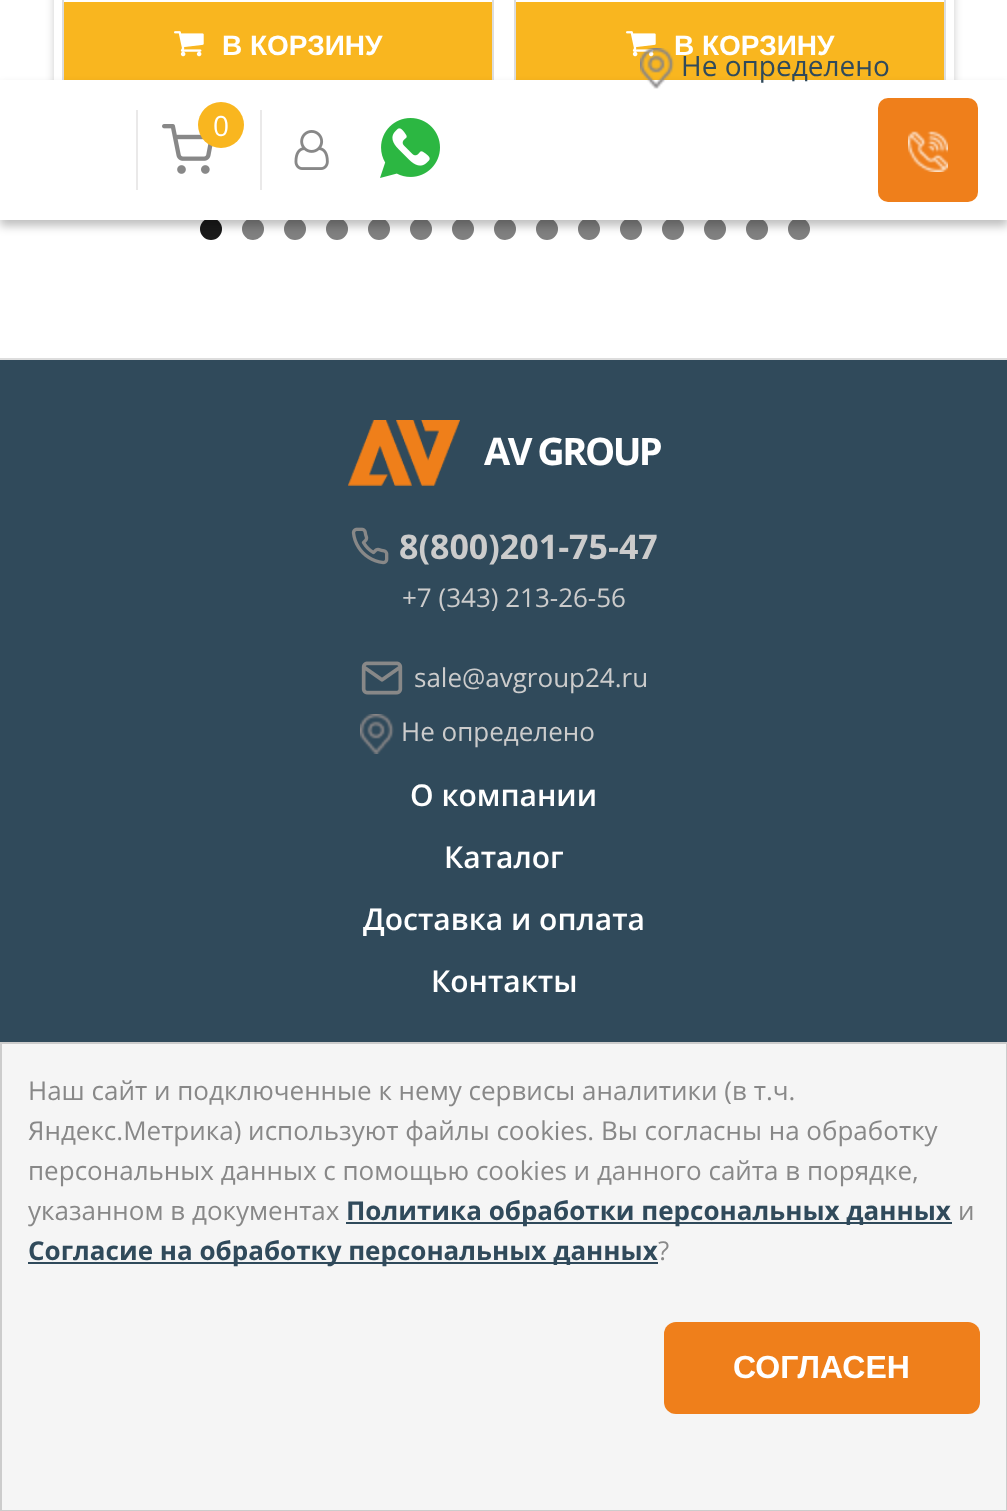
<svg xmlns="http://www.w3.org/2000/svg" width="1007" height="1511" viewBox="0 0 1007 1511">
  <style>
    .t1 { font: bold 28px Liberation Sans; fill: #fff; }
    .t2 { font: 28px Open Sans; fill: #304a5b; }
    .t3 { font: 28px Open Sans; fill: #fff; }
    .t4 { font: bold 38px Open Sans; letter-spacing: -2.5px; fill: #fff; }
    .t5 { font: bold 34px Open Sans; fill: #ccc; }
    .t6 { font: 26px Open Sans; fill: #ccc; }
    .t7 { font: 600 30px Open Sans; fill: #fff; }
    .t8 { font: 26px Open Sans; fill: #888; }
    .t9 { font: bold 26px Open Sans; fill: #304a5b; }
    .t10 { font: bold 32px Liberation Sans; fill: #fff; }
  </style>
  <rect width="100%" height="100%" fill="#fff"/>
  <rect x="54" y="-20" width="900" height="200" rx="8" fill="#00000033" filter="blur(4px)"/>
  <rect x="64" y="0" width="880" height="80" fill="#fff"/>
  <rect x="58" y="-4" width="892" height="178" fill="none" stroke="#fff" stroke-width="8"/>
  <rect x="63" y="-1" width="430" height="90" fill="none" stroke="#ddd" stroke-width="2"/>
  <rect x="64" y="2" width="428" height="78" fill="#f9b61f"/>
  <image x="174" y="31" width="30" height="26" href="images/1.png"/>
  <text x="222" y="55" class="t1">В КОРЗИНУ</text>
  <rect x="515" y="-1" width="430" height="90" fill="none" stroke="#ddd" stroke-width="2"/>
  <rect x="516" y="2" width="428" height="78" fill="#f9b61f"/>
  <image x="626" y="31" width="30" height="26" href="images/1.png"/>
  <text x="674" y="55" class="t1">В КОРЗИНУ</text>
  <circle cx="211" cy="229" r="11" fill="#1a1a1a"/>
  <circle cx="253" cy="229" r="11" fill="#808080"/>
  <circle cx="295" cy="229" r="11" fill="#808080"/>
  <circle cx="337" cy="229" r="11" fill="#808080"/>
  <circle cx="379" cy="229" r="11" fill="#808080"/>
  <circle cx="421" cy="229" r="11" fill="#808080"/>
  <circle cx="463" cy="229" r="11" fill="#808080"/>
  <circle cx="505" cy="229" r="11" fill="#808080"/>
  <circle cx="547" cy="229" r="11" fill="#808080"/>
  <circle cx="589" cy="229" r="11" fill="#808080"/>
  <circle cx="631" cy="229" r="11" fill="#808080"/>
  <circle cx="673" cy="229" r="11" fill="#808080"/>
  <circle cx="715" cy="229" r="11" fill="#808080"/>
  <circle cx="757" cy="229" r="11" fill="#808080"/>
  <circle cx="799" cy="229" r="11" fill="#808080"/>
  <rect x="0" y="86" width="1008" height="140" fill="#00000040" filter="blur(5px)"/>
  <rect x="0" y="80" width="1007" height="140" fill="#fff"/>
  <image x="640" y="48" width="34" height="41" href="images/2.png"/>
  <text x="681" y="76" class="t2">Не определено</text>
  <rect x="136" y="110" width="2" height="80" fill="#eae9e9"/>
  <image x="162" y="124" width="51" height="50" href="images/3.png"/>
  <circle cx="221" cy="125" r="23" fill="#f9b61f"/>
  <text x="213" y="136" class="t3">0</text>
  <rect x="260" y="110" width="2" height="80" fill="#eae9e9"/>
  <image x="294" y="130" width="35" height="40" href="images/4.png"/>
  <image x="380" y="118" width="60" height="60" href="images/5.png"/>
  <rect x="878" y="98" width="100" height="104" rx="10" fill="#ef7f1b"/>
  <image x="908" y="131" width="40" height="41" href="images/6.png"/>
  <rect x="0" y="360" width="1007" height="682" fill="#304a5b"/>
  <rect x="0" y="358" width="1007" height="2" fill="#ddd"/>
  <image x="348" y="420" width="112" height="66" href="images/7.png"/>
  <text x="484" y="465" class="t4">AV GROUP</text>
  <image x="351" y="527" width="38" height="38" href="images/8.png"/>
  <text x="399" y="559" class="t5">8(800)201-75-47</text>
  <text x="402" y="607" class="t6">+7 (343) 213-26-56</text>
  <image x="361" y="661" width="42" height="34" href="images/9.png"/>
  <text x="414" y="687" class="t6">sale@avgroup24.ru</text>
  <image x="360" y="714" width="34" height="40" href="images/10.png"/>
  <text x="401" y="741" class="t6">Не определено</text>
  <text x="410" y="806" class="t7">О компании</text>
  <text x="444" y="868" class="t7">Каталог</text>
  <text x="363" y="930" class="t7">Доставка и оплата</text>
  <text x="431" y="992" class="t7">Контакты</text>
  <rect x="1" y="1043" width="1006" height="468" fill="#f5f5f5" stroke="#ccc" stroke-width="2"/>
  <text x="28" y="1100" class="t8">Наш сайт и подключенные к нему сервисы аналитики (в т.ч.</text>
  <text x="28" y="1140" class="t8">Яндекс.Метрика) используют файлы cookies. Вы согласны на обработку</text>
  <text x="28" y="1180" class="t8">персональных данных с помощью cookies и данного сайта в порядке,</text>
  <text x="28" y="1220" class="t8">указанном в документах</text>
  <rect x="346" y="1222" width="606" height="2" fill="#304a5b"/>
  <text x="346" y="1220" class="t9">Политика обработки персональных данных</text>
  <text x="958" y="1220" class="t8">и</text>
  <rect x="28" y="1262" width="630" height="2" fill="#304a5b"/>
  <text x="28" y="1260" class="t9">Согласие на обработку персональных данных</text>
  <text x="658" y="1260" class="t8">?</text>
  <rect x="664" y="1322" width="316" height="92" rx="12" fill="#ef7f1b"/>
  <text x="733" y="1378" class="t10">СОГЛАСЕН</text>
</svg>
